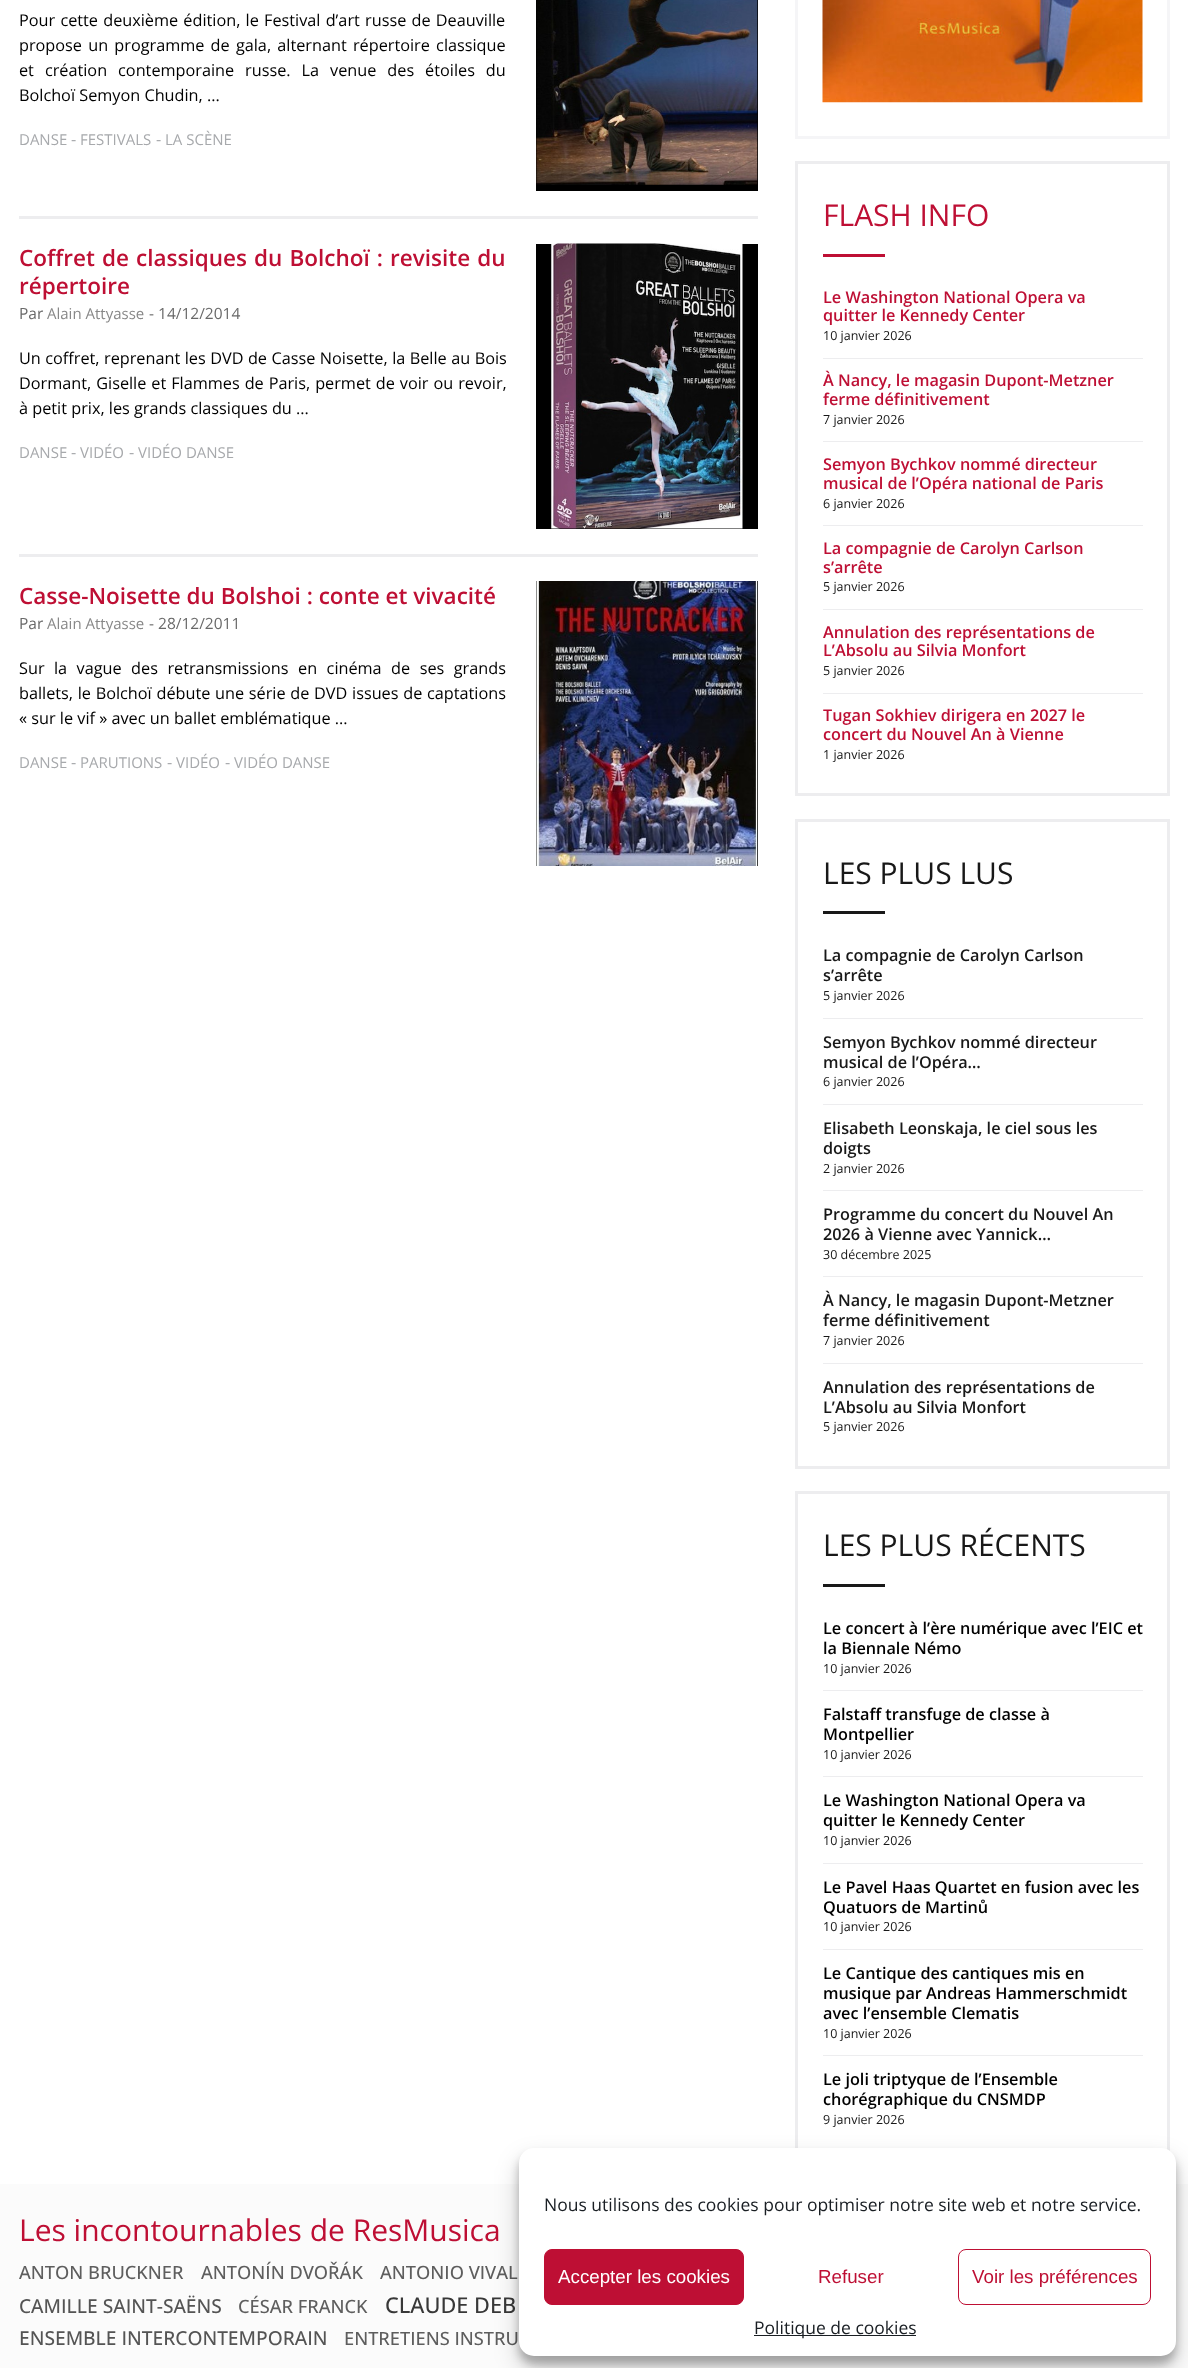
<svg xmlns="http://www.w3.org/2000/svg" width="1188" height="2368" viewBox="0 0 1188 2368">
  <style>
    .t1 { font: 16.25px Open Sans; fill: #000; }
    .t2 { font: 15px Open Sans; fill: #a7a9ac; }
    .t3 { font: 16.25px Open Sans; fill: #a7a9ac; }
    .t4 { font: 600 22.5px Open Sans; fill: #be0f34; }
    .t5 { font: 15.5px Open Sans; fill: #696969; }
    .t6 { font: 15px Open Sans; fill: #888; }
    .t7 { font: 30px Open Sans; fill: #be0f34; }
    .t8 { font: 600 16.25px Open Sans; fill: #be0f34; }
    .t9 { font: 12.5px Open Sans; fill: #181818; }
    .t10 { font: 30px Open Sans; fill: #181818; }
    .t11 { font: 600 16.25px Open Sans; fill: #181818; }
    .t12 { font: 600 16.25px Open Sans; fill: #000; }
    .t13 { font: 500 18.25px Open Sans; fill: #5e5e5e; }
    .t14 { font: 500 19.2px Open Sans; fill: #545454; }
    .t15 { font: 500 21.75px Open Sans; fill: #383838; }
    .t16 { font: 17.5px Open Sans; fill: #191e23; }
    .t17 { font: 18.75px Liberation Sans; fill: #fff; }
    .t18 { font: 18.75px Liberation Sans; fill: #be0f34; }
  </style>
  <rect width="100%" height="100%" fill="#fff"/>
  <text x="19" y="26" word-spacing="1" class="t1">Pour cette deuxième édition, le Festival d’art russe de Deauville</text>
  <text x="19" y="51" word-spacing="2" class="t1">propose un programme de gala, alternant répertoire classique</text>
  <text x="19" y="76" word-spacing="6.75" class="t1">et création contemporaine russe. La venue des étoiles du</text>
  <text x="19" y="101" class="t1">Bolchoï Semyon Chudin, ...</text>
  <text x="19" y="145" class="t2">DANSE</text>
  <text x="71" y="145" class="t3">-</text>
  <text x="80" y="145" class="t2">FESTIVALS</text>
  <text x="156" y="145" class="t3">-</text>
  <text x="165" y="145" class="t2">LA SCÈNE</text>
  <rect x="536" y="0" width="222" height="191" fill="#000"/>
  <image x="536" y="0" width="222" height="185" href="images/1.png"/>
  <rect x="19" y="216" width="739" height="3" fill="#ededef"/>
  <text x="19" y="266" word-spacing="1.25" class="t4">Coffret de classiques du Bolchoï : revisite du</text>
  <text x="19" y="294" class="t4">répertoire</text>
  <text x="19" y="319" class="t5">Par</text>
  <text x="47" y="319" class="t6">Alain Attyasse</text>
  <text x="149" y="319" class="t5">- 14/12/2014</text>
  <text x="19" y="364" word-spacing="0.25" class="t1">Un coffret, reprenant les DVD de Casse Noisette, la Belle au Bois</text>
  <text x="19" y="389" word-spacing="0.75" class="t1">Dormant, Giselle et Flammes de Paris, permet de voir ou revoir,</text>
  <text x="19" y="414" class="t1">à petit prix, les grands classiques du ...</text>
  <text x="19" y="458" class="t2">DANSE</text>
  <text x="71" y="458" class="t3">-</text>
  <text x="80" y="458" class="t2">VIDÉO</text>
  <text x="129" y="458" class="t3">-</text>
  <text x="138" y="458" class="t2">VIDÉO DANSE</text>
  <rect x="536" y="244" width="222" height="285" fill="#000"/>
  <image x="551" y="243" width="192" height="286" href="images/2.png"/>
  <rect x="19" y="554" width="739" height="3" fill="#ededef"/>
  <text x="19" y="604" class="t4">Casse-Noisette du Bolshoi : conte et vivacité</text>
  <text x="19" y="629" class="t5">Par</text>
  <text x="47" y="629" class="t6">Alain Attyasse</text>
  <text x="149" y="629" class="t5">- 28/12/2011</text>
  <text x="19" y="674" word-spacing="5.25" class="t1">Sur la vague des retransmissions en cinéma de ses grands</text>
  <text x="19" y="699" word-spacing="0.5" class="t1">ballets, le Bolchoï débute une série de DVD issues de captations</text>
  <text x="19" y="724" class="t1">« sur le vif » avec un ballet emblématique ...</text>
  <text x="19" y="768" class="t2">DANSE</text>
  <text x="71" y="768" class="t3">-</text>
  <text x="80" y="768" class="t2">PARUTIONS</text>
  <text x="167" y="768" class="t3">-</text>
  <text x="176" y="768" class="t2">VIDÉO</text>
  <text x="225" y="768" class="t3">-</text>
  <text x="234" y="768" class="t2">VIDÉO DANSE</text>
  <rect x="536" y="581" width="222" height="285" fill="#000"/>
  <image x="536" y="581" width="222" height="285" href="images/3.png"/>
  <rect x="796.5" y="-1.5" width="372" height="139" fill="none" stroke="#f5f5f7" stroke-width="3"/>
  <image x="822" y="0" width="321" height="103" href="images/4.png"/>
  <rect x="796.5" y="162.5" width="372" height="632" fill="none" stroke="#ededef" stroke-width="3"/>
  <text x="823" y="226" class="t7">FLASH INFO</text>
  <rect x="823" y="254" width="62" height="3" fill="#be0f34"/>
  <rect x="823" y="358" width="320" height="1" fill="#ededef"/>
  <text x="823" y="303" class="t8">Le Washington National Opera va</text>
  <text x="823" y="321" class="t8">quitter le Kennedy Center</text>
  <text x="823" y="340" class="t9">10 janvier 2026</text>
  <rect x="823" y="441" width="320" height="1" fill="#ededef"/>
  <text x="823" y="386" class="t8">À Nancy, le magasin Dupont-Metzner</text>
  <text x="823" y="405" class="t8">ferme définitivement</text>
  <text x="823" y="424" class="t9">7 janvier 2026</text>
  <rect x="823" y="525" width="320" height="1" fill="#ededef"/>
  <text x="823" y="470" class="t8">Semyon Bychkov nommé directeur</text>
  <text x="823" y="489" class="t8">musical de l’Opéra national de Paris</text>
  <text x="823" y="508" class="t9">6 janvier 2026</text>
  <rect x="823" y="609" width="320" height="1" fill="#ededef"/>
  <text x="823" y="554" class="t8">La compagnie de Carolyn Carlson</text>
  <text x="823" y="573" class="t8">s’arrête</text>
  <text x="823" y="591" class="t9">5 janvier 2026</text>
  <rect x="823" y="693" width="320" height="1" fill="#ededef"/>
  <text x="823" y="638" class="t8">Annulation des représentations de</text>
  <text x="823" y="656" class="t8">L’Absolu au Silvia Monfort</text>
  <text x="823" y="675" class="t9">5 janvier 2026</text>
  <text x="823" y="721" class="t8">Tugan Sokhiev dirigera en 2027 le</text>
  <text x="823" y="740" class="t8">concert du Nouvel An à Vienne</text>
  <text x="823" y="759" class="t9">1 janvier 2026</text>
  <rect x="796.5" y="820.5" width="372" height="647" fill="none" stroke="#ededef" stroke-width="3"/>
  <text x="823" y="884" class="t10">LES PLUS LUS</text>
  <rect x="823" y="911" width="62" height="3" fill="#181818"/>
  <rect x="823" y="1018" width="320" height="1" fill="#ededef"/>
  <text x="823" y="961" class="t11">La compagnie de Carolyn Carlson</text>
  <text x="823" y="981" class="t11">s’arrête</text>
  <text x="823" y="1000" class="t9">5 janvier 2026</text>
  <rect x="823" y="1104" width="320" height="1" fill="#ededef"/>
  <text x="823" y="1048" class="t11">Semyon Bychkov nommé directeur</text>
  <text x="823" y="1068" class="t11">musical de l’Opéra…</text>
  <text x="823" y="1086" class="t9">6 janvier 2026</text>
  <rect x="823" y="1190" width="320" height="1" fill="#ededef"/>
  <text x="823" y="1134" class="t11">Elisabeth Leonskaja, le ciel sous les</text>
  <text x="823" y="1154" class="t11">doigts</text>
  <text x="823" y="1173" class="t9">2 janvier 2026</text>
  <rect x="823" y="1276" width="320" height="1" fill="#ededef"/>
  <text x="823" y="1220" class="t11">Programme du concert du Nouvel An</text>
  <text x="823" y="1240" class="t11">2026 à Vienne avec Yannick…</text>
  <text x="823" y="1259" class="t9">30 décembre 2025</text>
  <rect x="823" y="1363" width="320" height="1" fill="#ededef"/>
  <text x="823" y="1306" class="t11">À Nancy, le magasin Dupont-Metzner</text>
  <text x="823" y="1326" class="t11">ferme définitivement</text>
  <text x="823" y="1345" class="t9">7 janvier 2026</text>
  <text x="823" y="1393" class="t11">Annulation des représentations de</text>
  <text x="823" y="1413" class="t11">L’Absolu au Silvia Monfort</text>
  <text x="823" y="1431" class="t9">5 janvier 2026</text>
  <rect x="796.5" y="1492.5" width="372" height="667" fill="none" stroke="#ededef" stroke-width="3"/>
  <text x="823" y="1556" class="t10">LES PLUS RÉCENTS</text>
  <rect x="823" y="1584" width="62" height="3" fill="#181818"/>
  <rect x="823" y="1690" width="320" height="1" fill="#ededef"/>
  <text x="823" y="1634" class="t12">Le concert à l’ère numérique avec l’EIC et</text>
  <text x="823" y="1654" class="t12">la Biennale Némo</text>
  <text x="823" y="1673" class="t9">10 janvier 2026</text>
  <rect x="823" y="1776" width="320" height="1" fill="#ededef"/>
  <text x="823" y="1720" class="t12">Falstaff transfuge de classe à</text>
  <text x="823" y="1740" class="t12">Montpellier</text>
  <text x="823" y="1759" class="t9">10 janvier 2026</text>
  <rect x="823" y="1863" width="320" height="1" fill="#ededef"/>
  <text x="823" y="1806" class="t12">Le Washington National Opera va</text>
  <text x="823" y="1826" class="t12">quitter le Kennedy Center</text>
  <text x="823" y="1845" class="t9">10 janvier 2026</text>
  <rect x="823" y="1949" width="320" height="1" fill="#ededef"/>
  <text x="823" y="1893" class="t12">Le Pavel Haas Quartet en fusion avec les</text>
  <text x="823" y="1913" class="t12">Quatuors de Martinů</text>
  <text x="823" y="1931" class="t9">10 janvier 2026</text>
  <rect x="823" y="2055" width="320" height="1" fill="#ededef"/>
  <text x="823" y="1979" class="t12">Le Cantique des cantiques mis en</text>
  <text x="823" y="1999" class="t12">musique par Andreas Hammerschmidt</text>
  <text x="823" y="2019" class="t12">avec l’ensemble Clematis</text>
  <text x="823" y="2038" class="t9">10 janvier 2026</text>
  <text x="823" y="2085" class="t12">Le joli triptyque de l’Ensemble</text>
  <text x="823" y="2105" class="t12">chorégraphique du CNSMDP</text>
  <text x="823" y="2124" class="t9">9 janvier 2026</text>
  <rect x="0" y="2184" width="1188" height="184" fill="#fbfbfb"/>
  <text x="19" y="2241" class="t7">Les incontournables de ResMusica</text>
  <text x="19" y="2279" class="t13">ANTON BRUCKNER</text>
  <text x="201" y="2279" class="t13">ANTONÍN DVOŘÁK</text>
  <text x="380" y="2279" class="t13">ANTONIO VIVAL</text>
  <text x="19" y="2313" class="t14">CAMILLE SAINT-SAËNS</text>
  <text x="238" y="2313" class="t13">CÉSAR FRANCK</text>
  <text x="385" y="2313" class="t15">CLAUDE DEB</text>
  <text x="19" y="2345" class="t14">ENSEMBLE INTERCONTEMPORAIN</text>
  <text x="344" y="2345" class="t13">ENTRETIENS INSTRU</text>
  <rect x="519" y="2155" width="657" height="209" rx="15" fill="#0000003b" filter="blur(4px)"/>
  <rect x="519" y="2160" width="657" height="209" rx="15" fill="#00000030" filter="blur(12.5px)"/>
  <rect x="519" y="2148" width="657" height="208" rx="15" fill="#fff"/>
  <text x="544" y="2211" class="t16">Nous utilisons des cookies pour optimiser notre site web et notre service.</text>
  <rect x="544.5" y="2249.5" width="199" height="55" rx="7.5" fill="#be0f34" stroke="#be0f34"/>
  <text x="558" y="2283" class="t17">Accepter les cookies</text>
  <text x="818" y="2283" class="t18">Refuser</text>
  <rect x="958.5" y="2249.5" width="192" height="55" rx="7.5" fill="none" stroke="#be0f34"/>
  <text x="972" y="2283" class="t18">Voir les préférences</text>
  <rect x="754" y="2335" width="162" height="1" fill="#191e23"/>
  <text x="754" y="2334" class="t16">Politique de cookies</text>
</svg>
